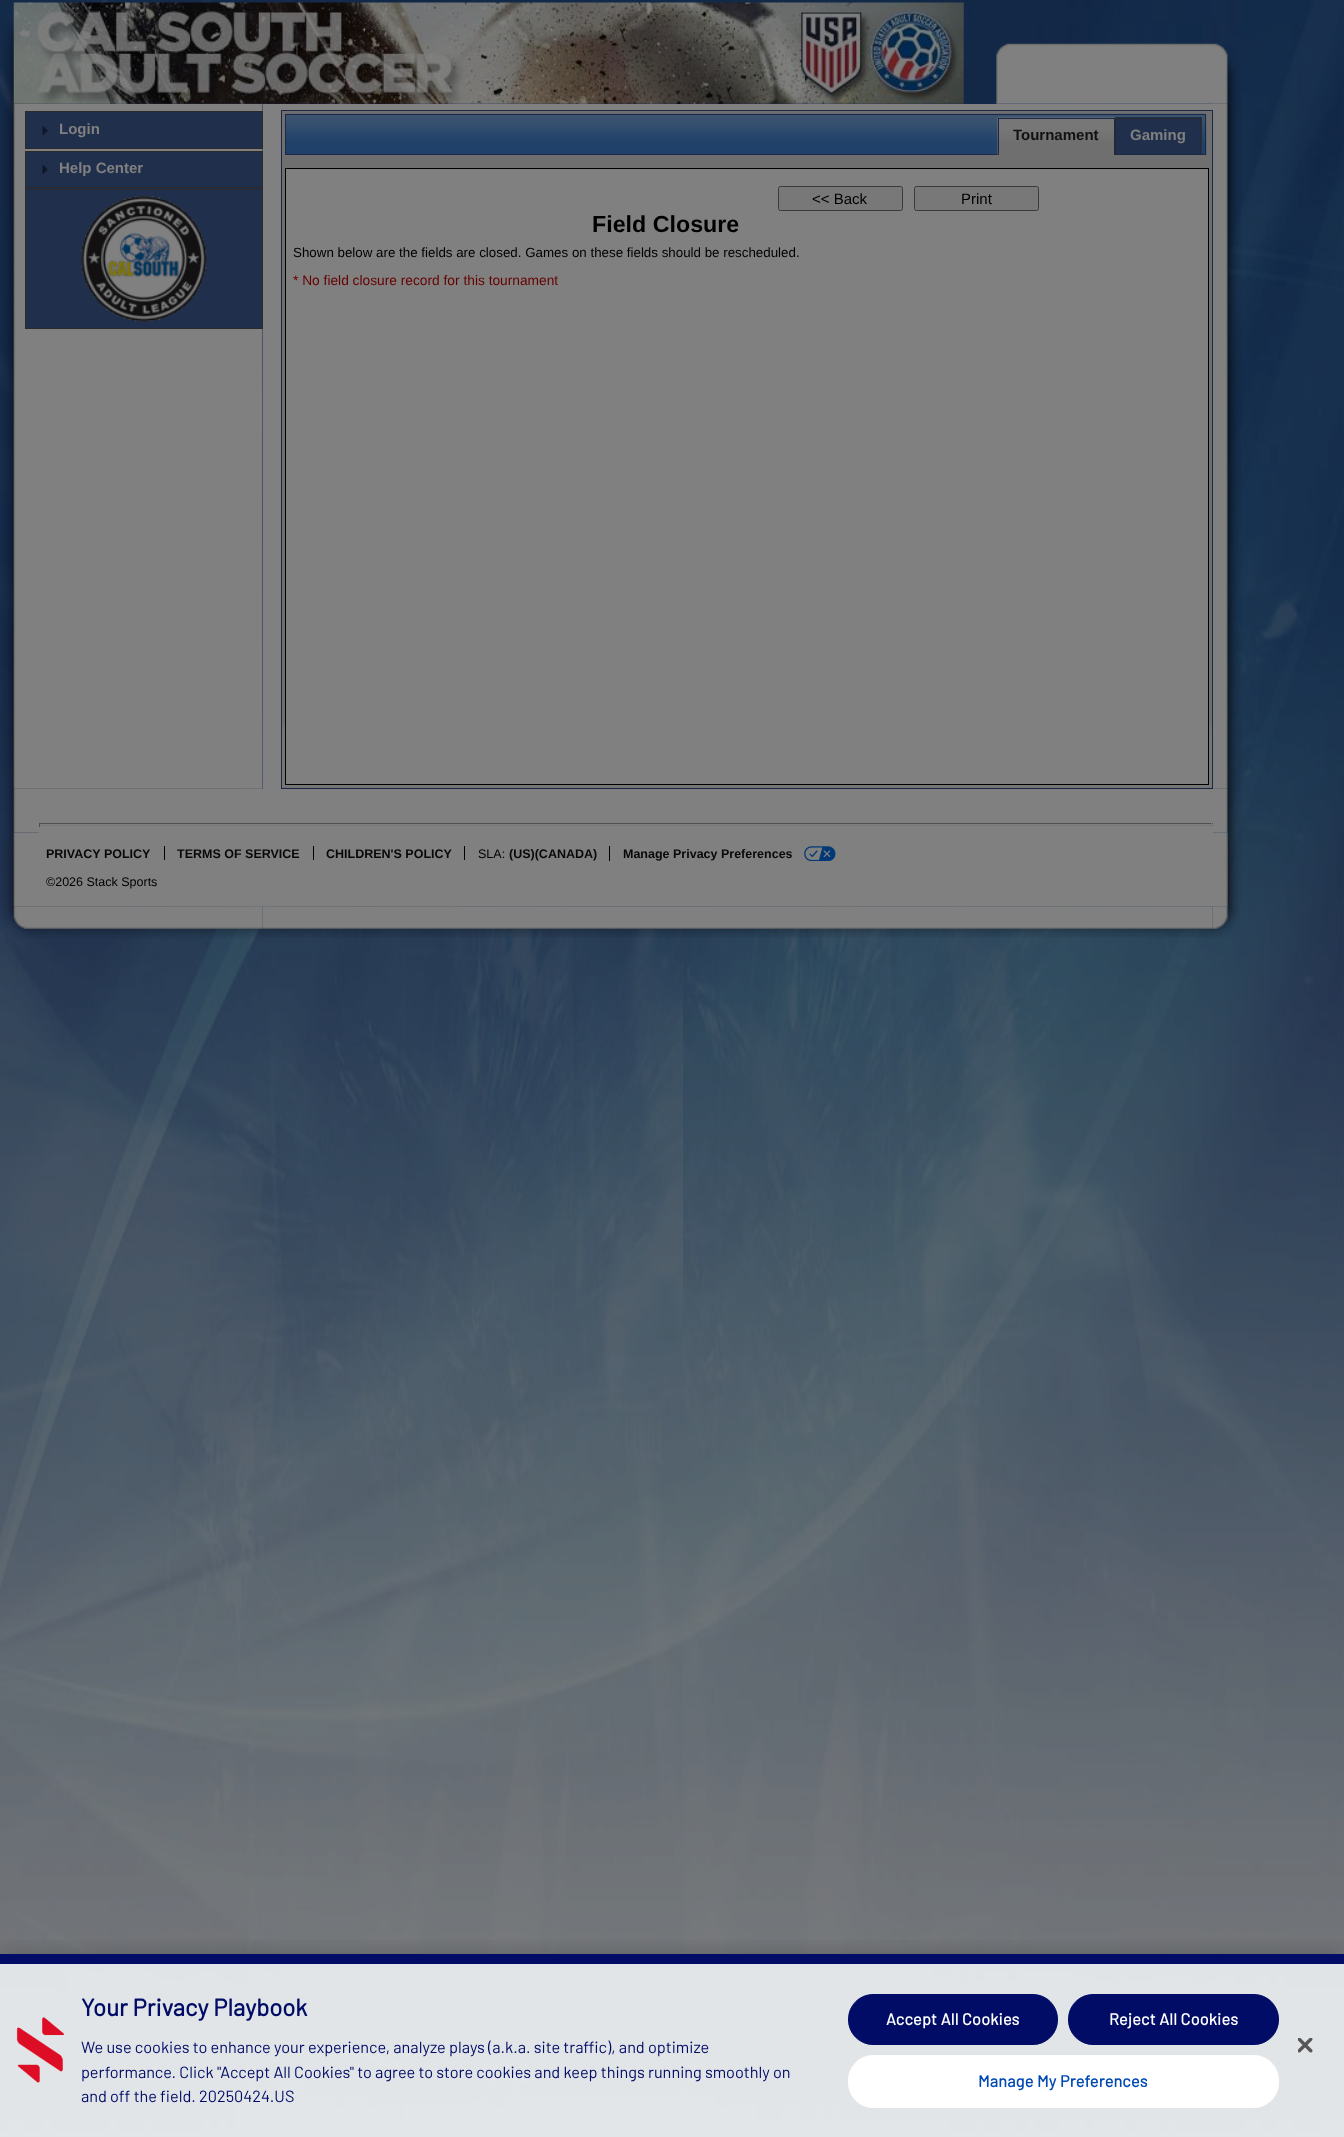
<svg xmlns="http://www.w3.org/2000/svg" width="1344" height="2137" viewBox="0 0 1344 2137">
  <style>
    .t1 { font: bold 15px Liberation Sans; fill: #808080; }
    .t2 { font: bold 15px Liberation Sans; fill: #111; }
    .t3 { font: 15px Liberation Sans; fill: #000; }
    .t4 { font: bold 23.25px Liberation Sans; fill: #000; }
    .t5 { font: 13.35px Liberation Sans; fill: #000; }
    .t6 { font: 13.75px Liberation Sans; fill: #600; }
    .t7 { font: bold 12.5px Liberation Sans; fill: #080808; }
    .t8 { font: 12.5px Liberation Sans; fill: #000; }
    .t9 { font: bold 24px Barlow; fill: #000c66; }
    .t10 { font: 16.25px Barlow; fill: #000c66; }
    .t11 { font: bold 16.25px Barlow; letter-spacing: 0.2px; fill: #fff; }
    .t12 { font: bold 16.25px Barlow; letter-spacing: 0.2px; fill: #0049b3; }
  </style>
  <defs>
    <clipPath id="clip1"><rect x="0" y="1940" width="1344" height="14"/></clipPath>
  </defs>
  <rect width="100%" height="100%" fill="#fff"/>
  <image x="0" y="0" width="1344" height="2137" href="images/1.png"/>
  <image x="3" y="19" width="59" height="85" href="images/2.png"/>
  <image x="2" y="103" width="261" height="686" href="images/5.png"/>
  <image x="13" y="2" width="951" height="102" href="images/3.png"/>
  <image x="996" y="43" width="245" height="61" href="images/4.png"/>
  <rect x="25.5" y="111.5" width="237" height="37" fill="#202f4c" stroke="#2b2b2b"/>
  <image x="42" y="126" width="6" height="10" href="images/6.png"/>
  <text x="59" y="134" class="t1">Login</text>
  <rect x="25.5" y="151.5" width="237" height="36" fill="#202f4c" stroke="#2b2b2b"/>
  <image x="42" y="164" width="6" height="10" href="images/7.png"/>
  <text x="59" y="173" class="t1">Help Center</text>
  <rect x="25" y="188" width="238" height="140" fill="#202f4c"/>
  <rect x="25.5" y="189.5" width="237" height="139" fill="none" stroke="#2b2b2b"/>
  <image x="81" y="196" width="126" height="126" href="images/8.png"/>
  <rect x="263" y="104" width="950" height="685" fill="#808080"/>
  <rect x="282" y="111" width="930" height="677" fill="#6f6f6f"/>
  <image x="282" y="724" width="930" height="64" href="images/9.png"/>
  <image x="1212" y="103" width="30" height="686" href="images/12.png"/>
  <rect x="281.5" y="110.5" width="931" height="678" fill="none" stroke="#1d2647"/>
  <image x="285" y="113" width="922" height="42" href="images/10.png"/>
  <rect x="285.5" y="114.5" width="920" height="40" fill="none" stroke="#1e2848"/>
  <image x="997" y="117" width="118" height="38" href="images/11.png"/>
  <rect x="998" y="118" width="117" height="1" fill="#1d2647"/>
  <rect x="1114" y="118" width="1" height="37" fill="#1d2647"/>
  <rect x="998" y="118" width="1" height="37" fill="#1d2647"/>
  <text x="1013" y="140" class="t2">Tournament</text>
  <rect x="1115" y="117" width="87" height="37" fill="#202f4c"/>
  <rect x="1115" y="118" width="86" height="1" fill="#2b2b2b"/>
  <rect x="1200" y="118" width="1" height="36" fill="#2b2b2b"/>
  <rect x="1115" y="118" width="1" height="36" fill="#2b2b2b"/>
  <text x="1130" y="140" class="t1">Gaming</text>
  <rect x="285.5" y="168.5" width="923" height="616" fill="#808080" stroke="#000"/>
  <rect x="778.5" y="186.5" width="124" height="24" rx="2" fill="#787878" stroke="#3b3b3b"/>
  <text x="812" y="204" class="t3">&lt;&lt; Back</text>
  <rect x="914.5" y="186.5" width="124" height="24" rx="2" fill="#787878" stroke="#3b3b3b"/>
  <text x="961" y="204" class="t3">Print</text>
  <text x="592" y="232" class="t4">Field Closure</text>
  <text x="293" y="257" class="t5">Shown below are the fields are closed. Games on these fields should be rescheduled.</text>
  <text x="293" y="285" class="t6">* No field closure record for this tournament</text>
  <image x="3" y="788" width="278" height="45" href="images/13.png"/>
  <rect x="39" y="789" width="1174" height="44" fill="#808080"/>
  <rect x="39" y="823" width="1174" height="1" fill="#505050"/>
  <rect x="1211" y="823" width="1" height="4" fill="#777"/>
  <rect x="39" y="825" width="1174" height="1" fill="#777"/>
  <rect x="39" y="823" width="1" height="4" fill="#505050"/>
  <image x="1213" y="788" width="29" height="45" href="images/14.png"/>
  <image x="2" y="832" width="460" height="75" href="images/15.png"/>
  <rect x="461" y="833" width="767" height="73" fill="#808080"/>
  <text x="46" y="858" class="t7">PRIVACY POLICY</text>
  <rect x="164" y="846" width="1" height="14" fill="#000"/>
  <text x="177" y="858" class="t7">TERMS OF SERVICE</text>
  <rect x="313" y="846" width="1" height="14" fill="#000"/>
  <text x="326" y="858" class="t7">CHILDREN'S POLICY</text>
  <rect x="464" y="846" width="1" height="14" fill="#000"/>
  <text x="478" y="858" class="t8">SLA:</text>
  <text x="509" y="858" class="t7">(US)(CANADA)</text>
  <rect x="609" y="846" width="1" height="15" fill="#000"/>
  <text x="623" y="858" class="t7">Manage Privacy Preferences</text>
  <image x="804" y="846" width="32" height="15" href="images/16.png"/>
  <text x="46" y="886" class="t8">©2026 Stack Sports</text>
  <image x="1212" y="832" width="30" height="75" href="images/17.png"/>
  <image x="3" y="906" width="260" height="33" href="images/18.png"/>
  <image x="262" y="906" width="951" height="32" href="images/19.png"/>
  <image x="1212" y="906" width="29" height="33" href="images/20.png"/>
  <g clip-path="url(#clip1)">
    <rect x="0" y="1954" width="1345" height="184" fill="#00000033" filter="blur(11px)"/>
  </g>
  <rect x="0" y="1964" width="1344" height="173" fill="#f5f8fad9"/>
  <rect x="0" y="1954" width="1344" height="10" fill="#000c66"/>
  <image x="16" y="2017" width="49" height="66" href="images/21.png"/>
  <text x="81" y="2016" class="t9">Your Privacy Playbook</text>
  <text x="81" y="2053" class="t10">We use cookies to enhance your experience, analyze plays (a.k.a. site traffic), and optimize</text>
  <text x="81" y="2078" class="t10">performance. Click "Accept All Cookies" to agree to store cookies and keep things running smoothly on</text>
  <text x="81" y="2102" class="t10">and off the field. 20250424.US</text>
  <rect x="848.5" y="1994.5" width="209" height="50" rx="24.5" fill="#000c66" stroke="#000c66"/>
  <text x="886" y="2025" class="t11">Accept All Cookies</text>
  <rect x="1068.5" y="1994.5" width="210" height="50" rx="24.5" fill="#000c66" stroke="#000c66"/>
  <text x="1109" y="2025" class="t11">Reject All Cookies</text>
  <rect x="848.5" y="2055.5" width="430" height="52" rx="24.5" fill="#fff" stroke="#fff"/>
  <text x="978" y="2087" class="t12">Manage My Preferences</text>
  <image x="1298" y="2038" width="15" height="15" href="images/22.png"/>
</svg>
